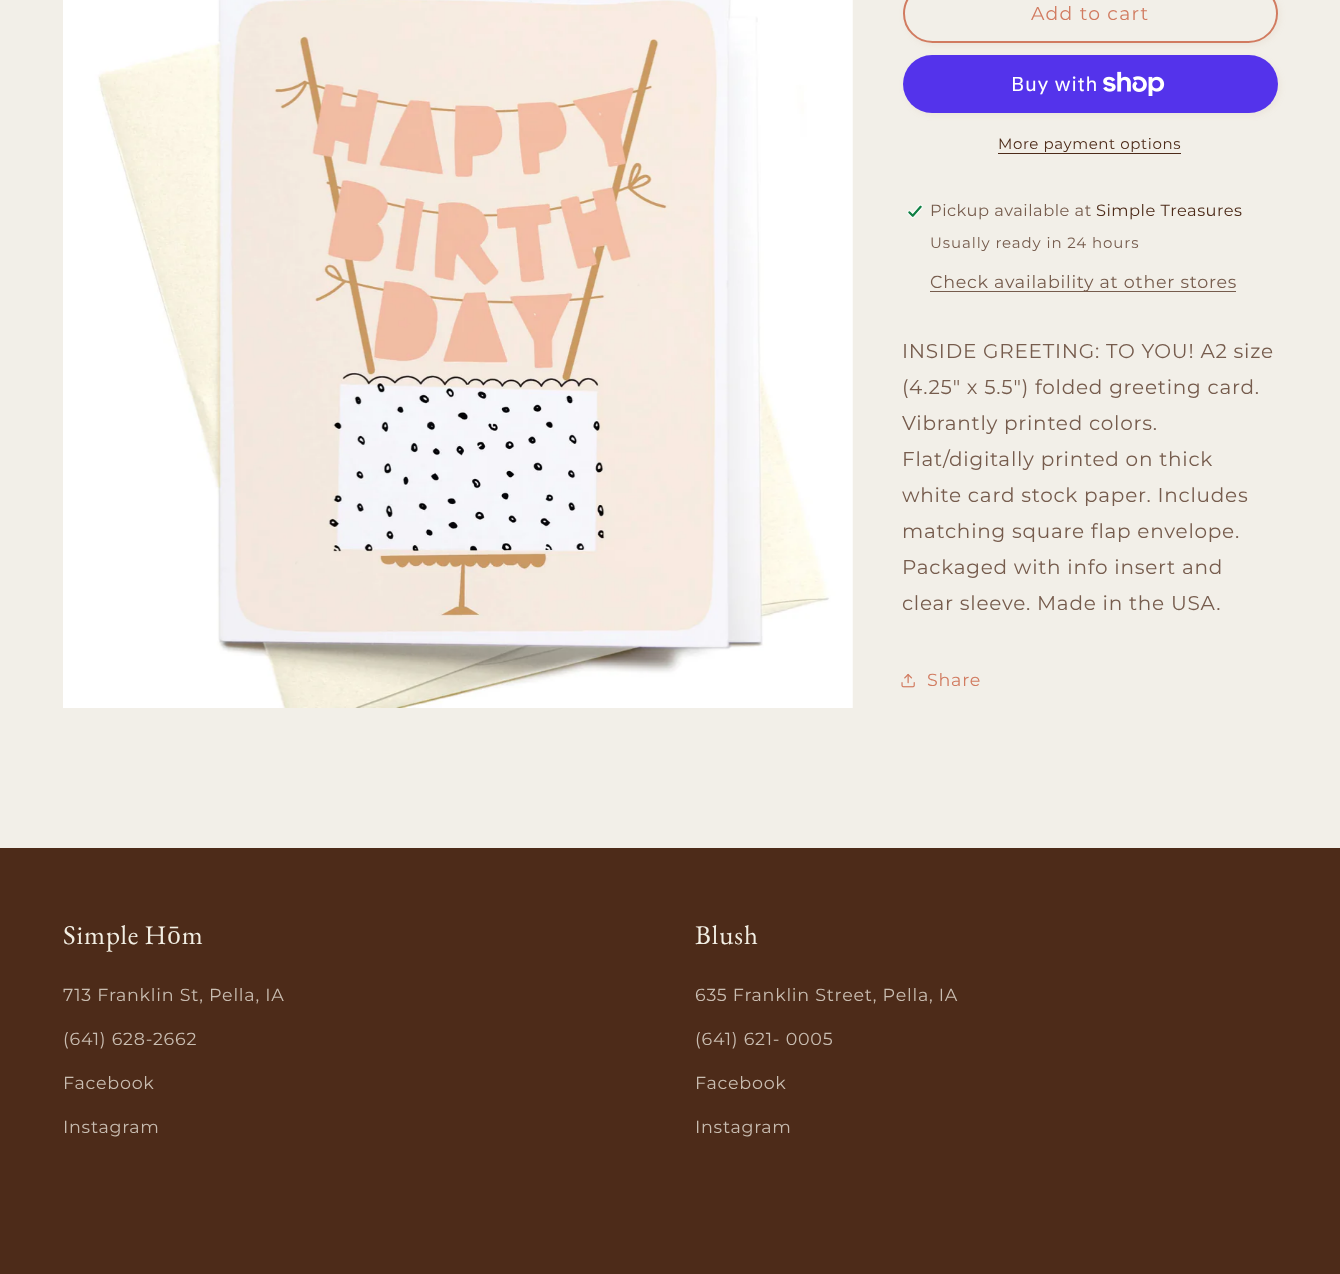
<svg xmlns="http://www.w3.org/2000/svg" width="1340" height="1274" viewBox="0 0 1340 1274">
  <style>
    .t1 { font: 18.75px Montserrat; letter-spacing: 1.25px; fill: #d17b60; }
    .t2 { font: 20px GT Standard; letter-spacing: 0.75px; fill: #fff; }
    .t3 { font: 15px Montserrat; letter-spacing: 0.6px; fill: #4d2b19; }
    .t4 { font: 16.25px Montserrat; letter-spacing: 0.5px; fill: #765c4d; }
    .t5 { font: 16.25px Montserrat; letter-spacing: 0.5px; fill: #4d2b19; }
    .t6 { font: 15px Montserrat; letter-spacing: 0.9px; fill: #765c4d; }
    .t7 { font: 17.5px Montserrat; letter-spacing: 0.75px; fill: #765c4d; }
    .t8 { font: 20px Montserrat; letter-spacing: 0.75px; fill: #765c4d; }
    .t9 { font: 17.5px Montserrat; letter-spacing: 0.75px; fill: #d17b60; }
    .t10 { font: 27px EB Garamond; letter-spacing: 0.9px; fill: #f2eee3; }
    .t11 { font: 17.5px Montserrat; letter-spacing: 0.75px; fill: #c9bdb1; }
  </style>
  <rect width="100%" height="100%" fill="#f2efe8"/>
  <image x="63" y="0" width="790" height="708" href="images/1.png"/>
  <rect x="905" y="-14" width="375" height="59" rx="29.5" fill="#b891681a" filter="blur(3px)"/>
  <rect x="903" y="-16" width="375" height="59" rx="29.5" fill="#f2efe8"/>
  <rect x="904" y="-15" width="373" height="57" rx="28.5" fill="none" stroke="#d17b60" stroke-width="2"/>
  <text x="1031" y="20" class="t1">Add to cart</text>
  <rect x="905" y="58" width="375" height="57" rx="28.5" fill="#b891681a" filter="blur(3px)"/>
  <rect x="903" y="55" width="375" height="58" rx="29" fill="#5433eb"/>
  <text x="1011" y="91" class="t2">Buy with</text>
  <image x="1103" y="71" width="62" height="25" href="images/2.png"/>
  <text x="998" y="149" class="t3">More payment options</text>
  <rect x="998" y="153" width="183" height="1" fill="#4d2b19"/>
  <image x="907" y="204" width="16" height="14" href="images/3.png"/>
  <text x="930" y="216" class="t4">Pickup available at</text>
  <text x="1096" y="216" class="t5">Simple Treasures</text>
  <text x="930" y="248" class="t6">Usually ready in 24 hours</text>
  <rect x="930" y="291" width="306" height="1" fill="#765c4d"/>
  <text x="930" y="288" class="t7">Check availability at other stores</text>
  <text x="902" y="358" class="t8">INSIDE GREETING: TO YOU! A2 size</text>
  <text x="902" y="394" class="t8">(4.25" x 5.5") folded greeting card.</text>
  <text x="902" y="430" class="t8">Vibrantly printed colors.</text>
  <text x="902" y="466" class="t8">Flat/digitally printed on thick</text>
  <text x="902" y="502" class="t8">white card stock paper. Includes</text>
  <text x="902" y="538" class="t8">matching square flap envelope.</text>
  <text x="902" y="574" class="t8">Packaged with info insert and</text>
  <text x="902" y="610" class="t8">clear sleeve. Made in the USA.</text>
  <image x="901" y="673" width="14" height="15" href="images/4.png"/>
  <text x="927" y="686" class="t9">Share</text>
  <rect x="0" y="848" width="1340" height="426" fill="#4d2b19"/>
  <text x="63" y="944" word-spacing="-1" class="t10">Simple Hōm</text>
  <text x="63" y="1001" class="t11">713 Franklin St, Pella, IA</text>
  <text x="63" y="1045" class="t11">(641) 628-2662</text>
  <text x="63" y="1089" class="t11">Facebook</text>
  <text x="63" y="1133" class="t11">Instagram</text>
  <text x="695" y="944" class="t10">Blush</text>
  <text x="695" y="1001" class="t11">635 Franklin Street, Pella, IA</text>
  <text x="695" y="1045" class="t11">(641) 621- 0005</text>
  <text x="695" y="1089" class="t11">Facebook</text>
  <text x="695" y="1133" class="t11">Instagram</text>
</svg>
